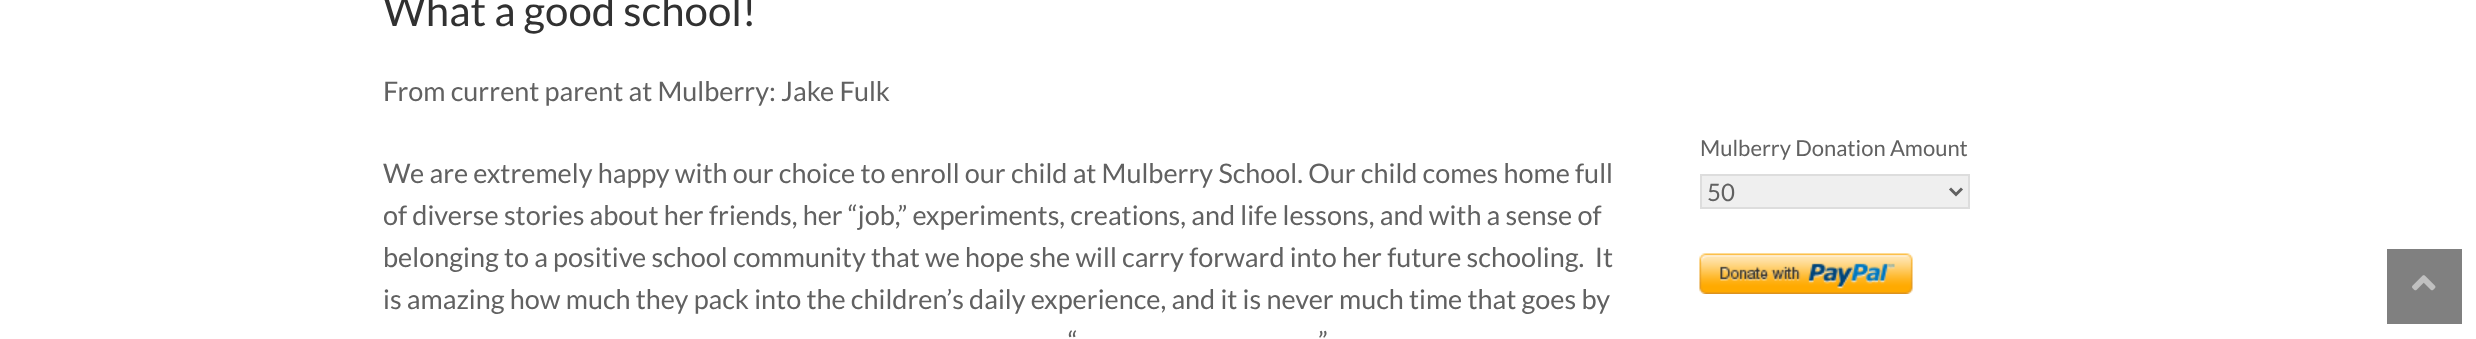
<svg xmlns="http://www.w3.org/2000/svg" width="2476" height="339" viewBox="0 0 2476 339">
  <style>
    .t1 { font: 42px Lato; fill: #313131; }
    .t2 { font: 27px Lato; fill: #616161; }
    .t3 { font: 22px Lato; fill: #616161; }
    .t4 { font: 24px Lato; fill: #616161; }
  </style>
  <rect width="100%" height="100%" fill="#fff"/>
  <text x="383" y="26" class="t1">What a good school!</text>
  <text x="383" y="101" class="t2">From current parent at Mulberry: Jake Fulk</text>
  <text x="383" y="183" class="t2">We are extremely happy with our choice to enroll our child at Mulberry School. Our child comes home full</text>
  <text x="383" y="225" class="t2">of diverse stories about her friends, her “job,” experiments, creations, and life lessons, and with a sense of</text>
  <text x="383" y="267" class="t2" xml:space="preserve">belonging to a positive school community that we hope she will carry forward into her future schooling.  It</text>
  <text x="383" y="309" class="t2">is amazing how much they pack into the children’s daily experience, and it is never much time that goes by</text>
  <text x="1068" y="351" class="t2">“</text>
  <text x="1318" y="351" class="t2">”</text>
  <text x="1700" y="156" class="t3">Mulberry Donation Amount</text>
  <rect x="1701" y="175" width="268" height="33" fill="#efefef" stroke="#ddd" stroke-width="2"/>
  <path d="M1950 188.5L1956 194.5L1962 188.5" fill="none" stroke="#616161" stroke-width="3"/>
  <text x="1707" y="201" class="t4">50</text>
  <image x="1699" y="253" width="214" height="41" href="images/1.png"/>
  <rect x="2387" y="249" width="75" height="75" fill="#808080"/>
  <image x="2412" y="275" width="24" height="16" href="images/2.png"/>
</svg>
